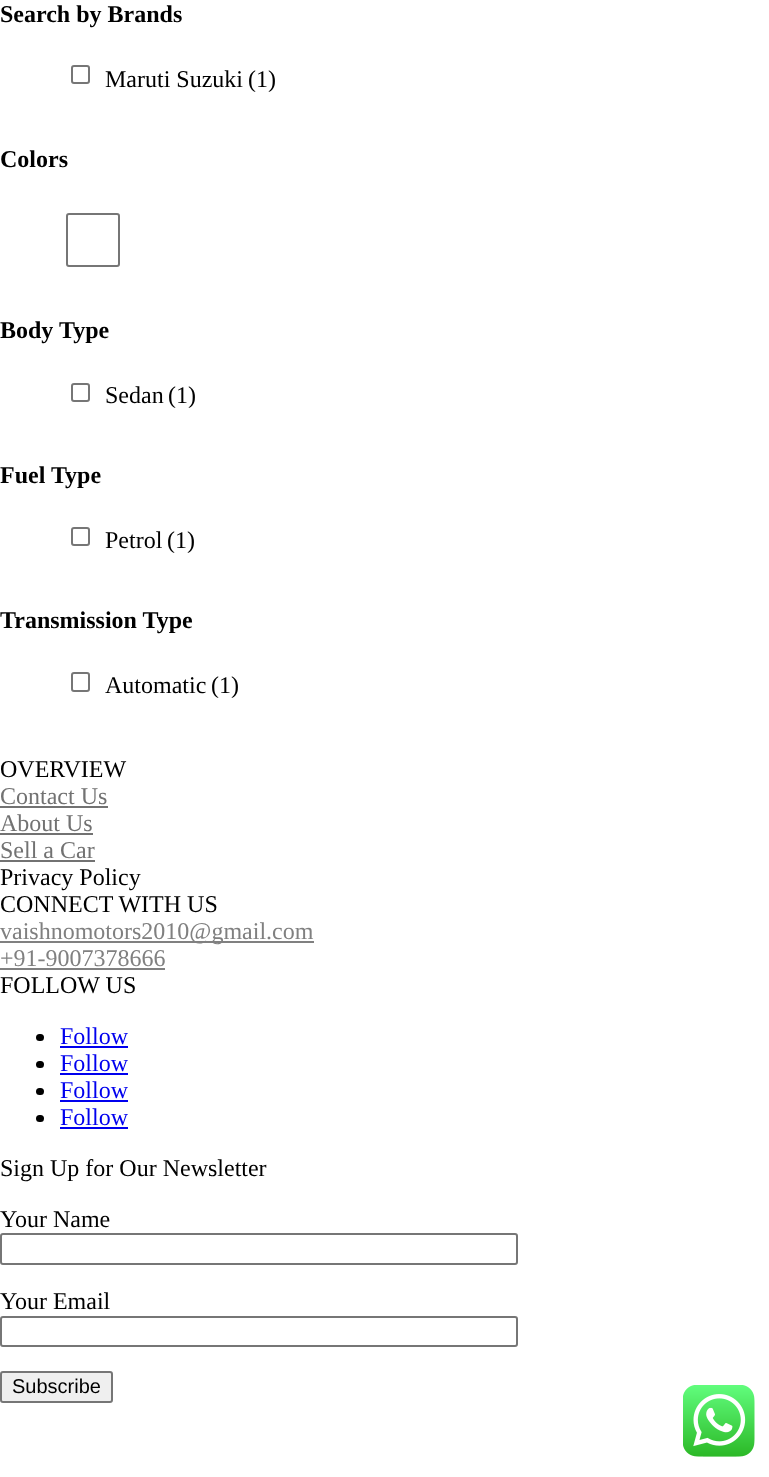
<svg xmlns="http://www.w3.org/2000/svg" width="769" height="1477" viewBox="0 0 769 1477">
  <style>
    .t1 { font: bold 24px Liberation Serif; fill: #000; }
    .t2 { font: 24px Liberation Serif; fill: #000; }
    .t3 { font: 24px Liberation Serif; fill: #727272; }
    .t4 { font: 24px Liberation Serif; fill: #808080; }
    .t5 { font: 24px Liberation Serif; fill: #00e; }
    .t6 { font: 20px Liberation Sans; fill: #000; }
  </style>
  <rect width="100%" height="100%" fill="#fff"/>
  <text x="0" y="22" class="t1">Search by Brands</text>
  <rect x="72" y="66" width="17" height="17" rx="2" fill="none" stroke="#767676" stroke-width="2"/>
  <text x="105" y="87" class="t2">Maruti Suzuki</text>
  <text x="248" y="87" class="t2">(1)</text>
  <text x="0" y="167" class="t1">Colors</text>
  <rect x="67" y="214" width="52" height="52" rx="2" fill="none" stroke="#767676" stroke-width="2"/>
  <text x="0" y="338" class="t1">Body Type</text>
  <rect x="72" y="384" width="17" height="17" rx="2" fill="none" stroke="#767676" stroke-width="2"/>
  <text x="105" y="403" class="t2">Sedan</text>
  <text x="168" y="403" class="t2">(1)</text>
  <text x="0" y="483" class="t1">Fuel Type</text>
  <rect x="72" y="528" width="17" height="17" rx="2" fill="none" stroke="#767676" stroke-width="2"/>
  <text x="105" y="548" class="t2">Petrol</text>
  <text x="167" y="548" class="t2">(1)</text>
  <text x="0" y="628" class="t1">Transmission Type</text>
  <rect x="72" y="673" width="17" height="18" rx="2" fill="none" stroke="#767676" stroke-width="2"/>
  <text x="105" y="693" class="t2">Automatic</text>
  <text x="211" y="693" class="t2">(1)</text>
  <text x="0" y="777" class="t2">OVERVIEW</text>
  <text x="0" y="804" class="t3">Contact Us</text>
  <rect x="0" y="806" width="108" height="2" fill="#727272"/>
  <text x="0" y="831" class="t3">About Us</text>
  <rect x="0" y="833" width="93" height="2" fill="#727272"/>
  <text x="0" y="858" class="t3">Sell a Car</text>
  <rect x="0" y="860" width="95" height="2" fill="#727272"/>
  <text x="0" y="885" class="t2">Privacy Policy</text>
  <text x="0" y="912" class="t2">CONNECT WITH US</text>
  <rect x="0" y="941" width="314" height="2" fill="#808080"/>
  <text x="0" y="939" class="t4">vaishnomotors2010@gmail.com</text>
  <text x="0" y="966" class="t4">+91-9007378666</text>
  <rect x="0" y="968" width="165" height="2" fill="#808080"/>
  <text x="0" y="993" class="t2">FOLLOW US</text>
  <rect x="36" y="1034" width="8" height="7" rx="3.5" fill="#000"/>
  <text x="60" y="1044" class="t5">Follow</text>
  <rect x="60" y="1046" width="68" height="2" fill="#00e"/>
  <rect x="36" y="1061" width="8" height="7" rx="3.5" fill="#000"/>
  <text x="60" y="1071" class="t5">Follow</text>
  <rect x="60" y="1073" width="68" height="2" fill="#00e"/>
  <rect x="36" y="1088" width="8" height="7" rx="3.5" fill="#000"/>
  <text x="60" y="1098" class="t5">Follow</text>
  <rect x="60" y="1100" width="68" height="2" fill="#00e"/>
  <rect x="36" y="1115" width="8" height="7" rx="3.5" fill="#000"/>
  <text x="60" y="1125" class="t5">Follow</text>
  <rect x="60" y="1127" width="68" height="2" fill="#00e"/>
  <text x="0" y="1176" class="t2">Sign Up for Our Newsletter</text>
  <text x="0" y="1227" class="t2">Your Name</text>
  <rect x="1" y="1234" width="516" height="30" rx="2" fill="none" stroke="#767676" stroke-width="2"/>
  <text x="0" y="1309" class="t2">Your Email</text>
  <rect x="1" y="1317" width="516" height="29" rx="2" fill="none" stroke="#767676" stroke-width="2"/>
  <rect x="1" y="1372" width="111" height="30" rx="2" fill="#efefef" stroke="#767676" stroke-width="2"/>
  <text x="12" y="1393" class="t6">Subscribe</text>
  <image x="683" y="1385" width="72" height="72" href="images/1.png"/>
</svg>
